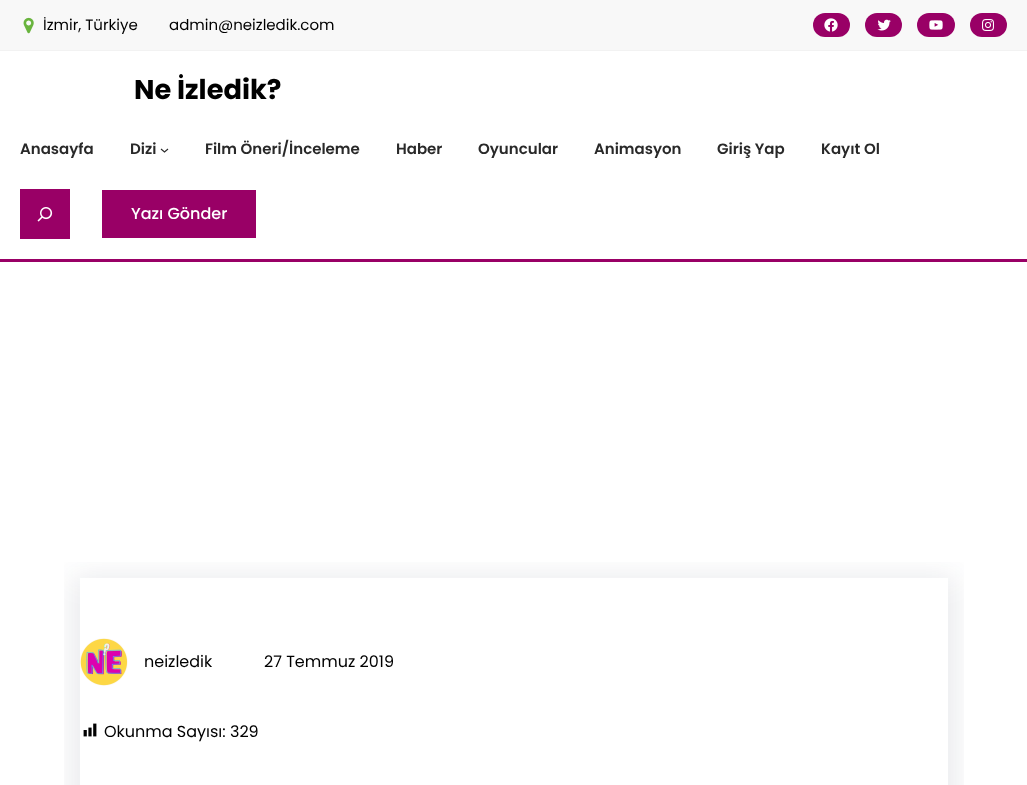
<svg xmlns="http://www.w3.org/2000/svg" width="1027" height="785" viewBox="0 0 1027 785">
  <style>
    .t1 { font: 15px Poppins; fill: #000; }
    .t2 { font: bold 27.25px Poppins; fill: #000; }
    .t3 { font: 600 15px Poppins; fill: #292929; }
    .t4 { font: 500 16px Poppins; fill: #fff; }
    .t5 { font: 16px Poppins; fill: #000; }
  </style>
  <defs>
    <clipPath id="clip1"><rect x="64" y="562" width="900" height="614"/></clipPath>
    <clipPath id="clip2"><path d="M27 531H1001V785H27ZM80 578H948V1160H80Z" clip-rule="evenodd"/></clipPath>
  </defs>
  <rect width="100%" height="100%" fill="#fff"/>
  <rect x="0" y="0" width="1027" height="50" fill="#f8f8f8"/>
  <rect x="0" y="50" width="1027" height="1" fill="#f2f2f2"/>
  <image x="23" y="17" width="11" height="17" href="images/1.png"/>
  <text x="43" y="30" class="t1">İzmir, Türkiye</text>
  <text x="169" y="30" class="t1">admin@neizledik.com</text>
  <rect x="813" y="13" width="37" height="24" rx="12" fill="#906"/>
  <image x="824" y="18" width="14" height="14" href="images/2.png"/>
  <rect x="865" y="13" width="37" height="24" rx="12" fill="#906"/>
  <image x="877" y="19" width="14" height="12" href="images/3.png"/>
  <rect x="917" y="13" width="38" height="24" rx="12" fill="#906"/>
  <image x="929" y="20" width="14" height="10" href="images/4.png"/>
  <rect x="970" y="13" width="37" height="24" rx="12" fill="#906"/>
  <image x="982" y="19" width="12" height="12" href="images/5.png"/>
  <rect x="0" y="259" width="1027" height="3" fill="#906"/>
  <text x="134" y="99" class="t2">Ne İzledik?</text>
  <text x="20" y="154" class="t3">Anasayfa</text>
  <text x="130" y="154" class="t3">Dizi</text>
  <path d="M161 149L164.5 152L168 149" fill="none" stroke="#292929" stroke-width="1.1"/>
  <text x="205" y="154" class="t3">Film Öneri/İnceleme</text>
  <text x="396" y="154" class="t3">Haber</text>
  <text x="478" y="154" class="t3">Oyuncular</text>
  <text x="594" y="154" class="t3">Animasyon</text>
  <text x="717" y="154" class="t3">Giriş Yap</text>
  <text x="821" y="154" class="t3">Kayıt Ol</text>
  <rect x="20" y="189" width="50" height="50" fill="#906"/>
  <image x="37" y="207" width="16" height="15" href="images/6.png"/>
  <rect x="102" y="190" width="154" height="48" fill="#906"/>
  <text x="131" y="219" class="t4">Yazı Gönder</text>
  <g clip-path="url(#clip1)">
    <g clip-path="url(#clip2)">
      <rect x="73" y="577" width="882" height="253" fill="#2125471a" filter="blur(15px)"/>
    </g>
  </g>
  <image x="80" y="638" width="48" height="48" href="images/7.png"/>
  <text x="144" y="667" class="t5">neizledik</text>
  <text x="264" y="667" class="t5">27 Temmuz 2019</text>
  <image x="83" y="723" width="14" height="14" href="images/8.png"/>
  <text x="104" y="737" class="t5">Okunma Sayısı: 329</text>
</svg>
